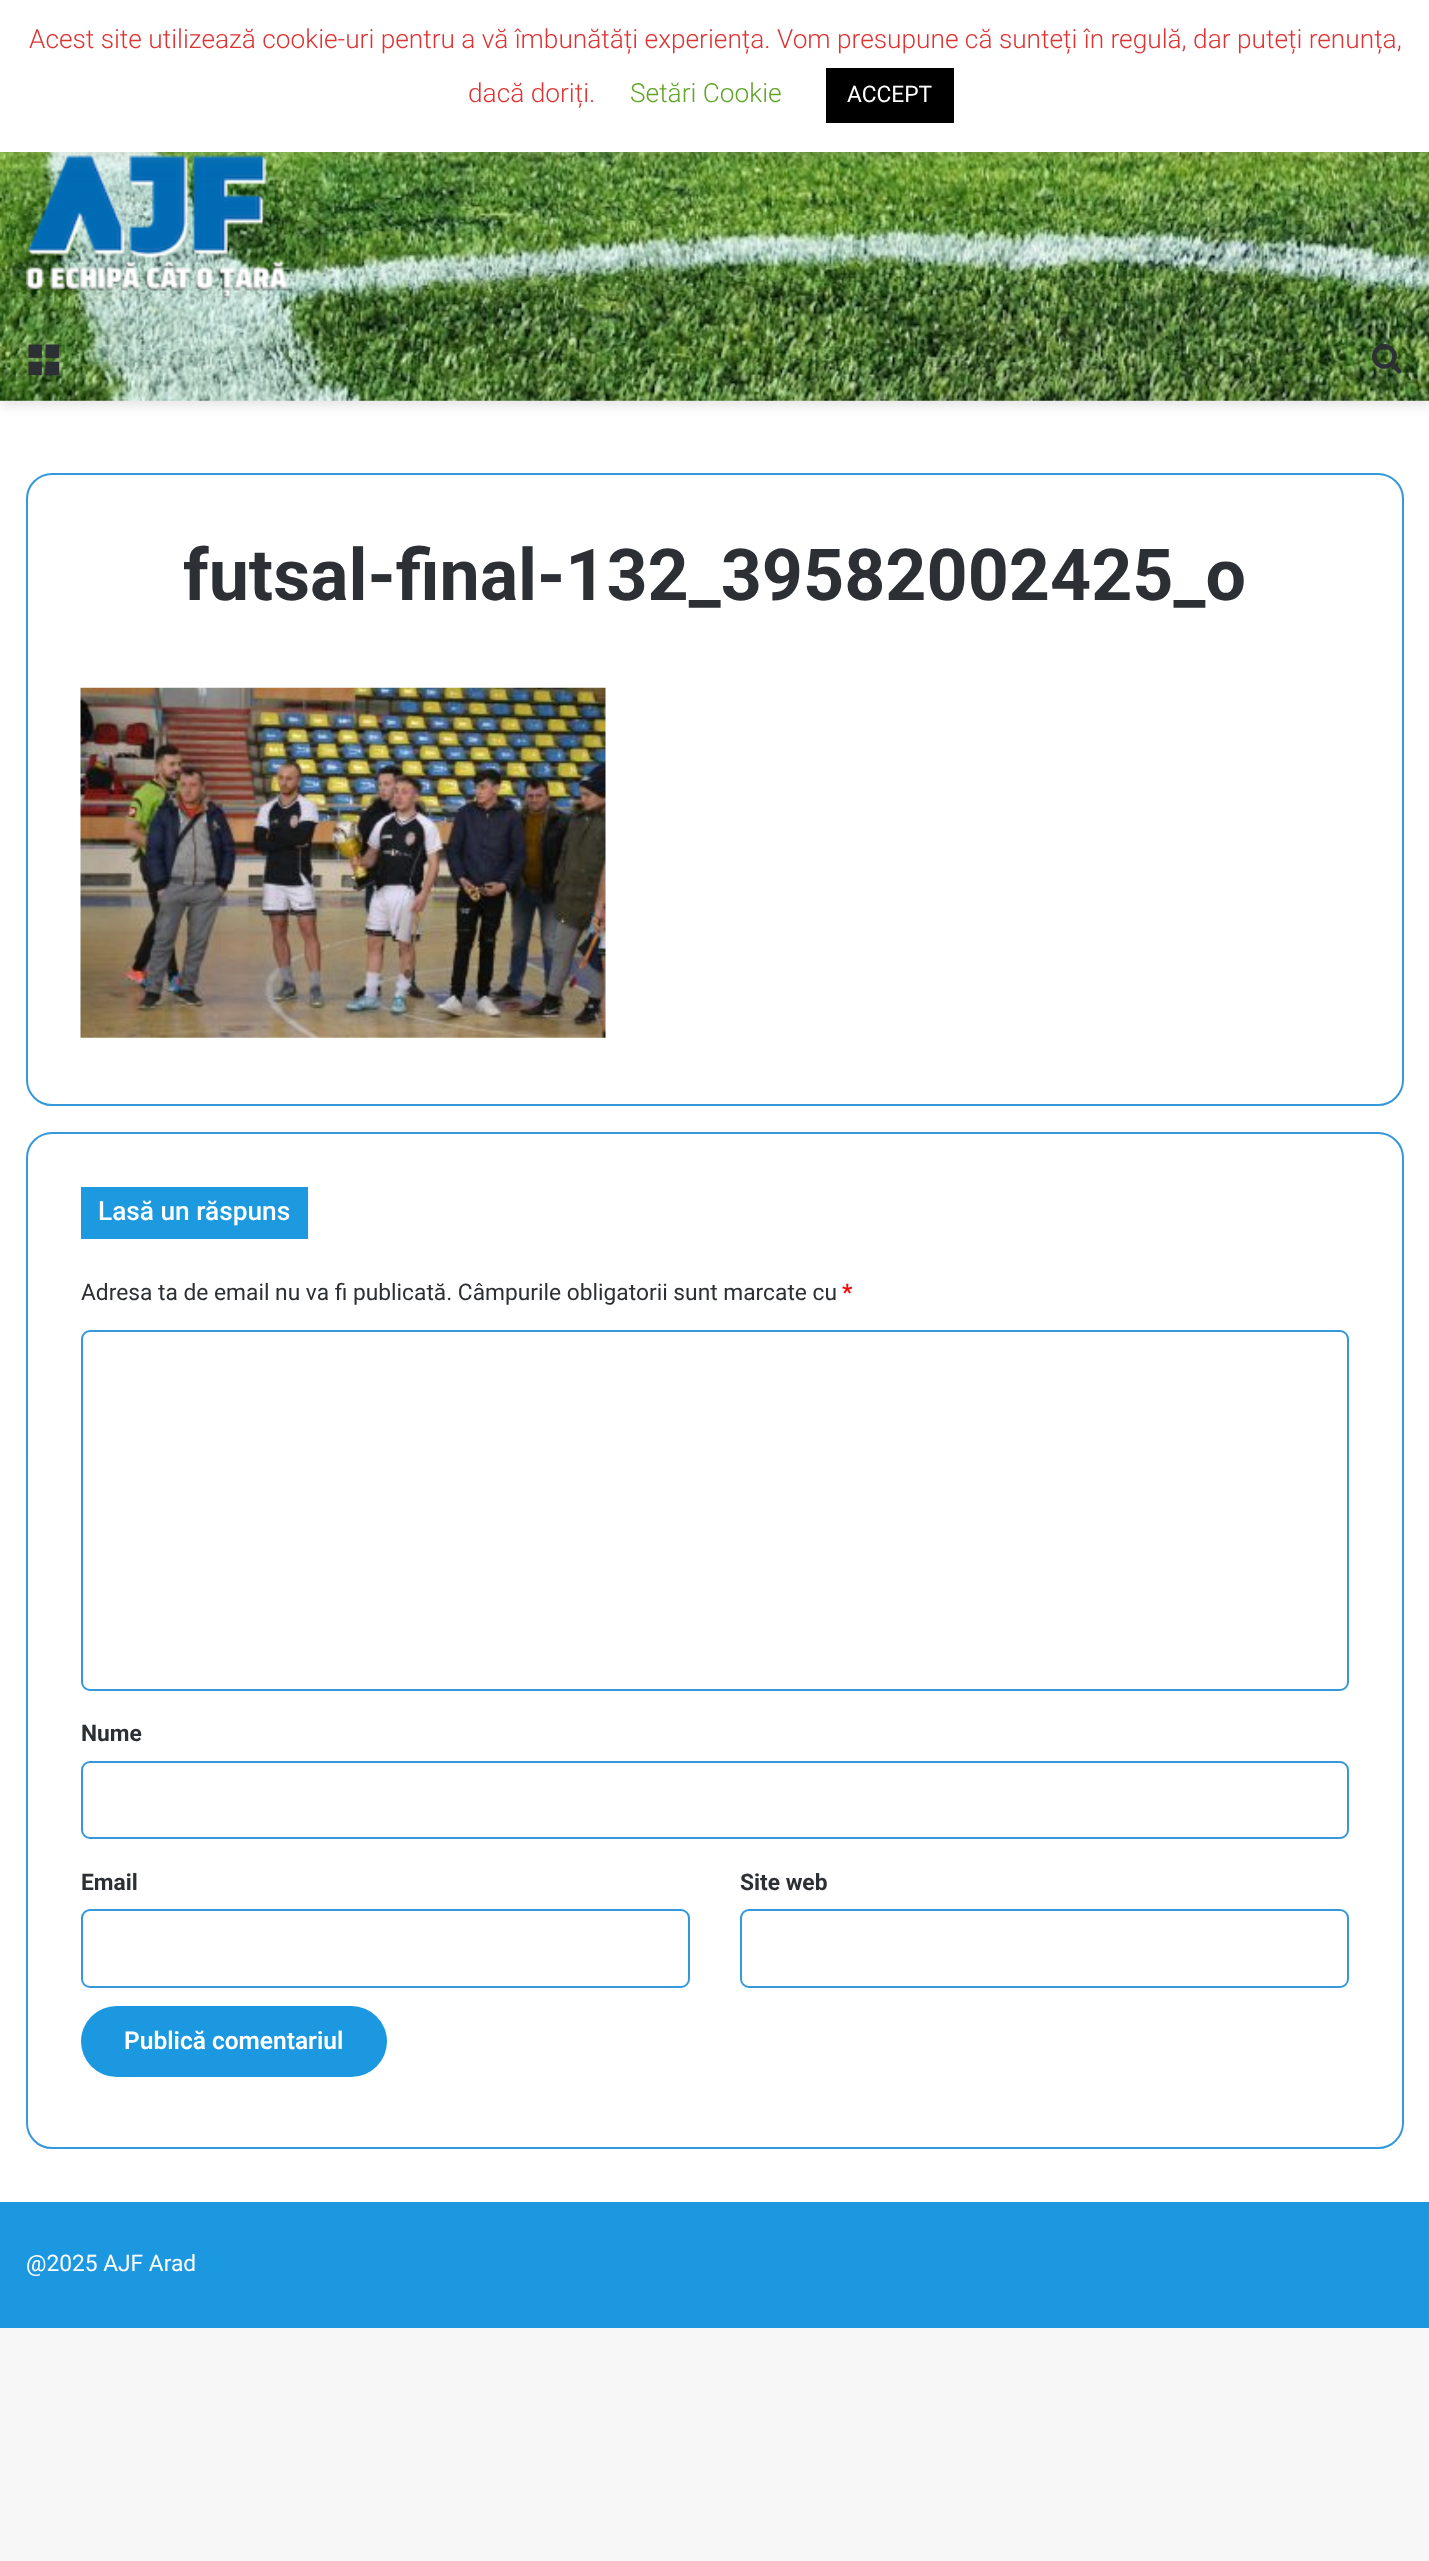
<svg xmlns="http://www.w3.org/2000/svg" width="1429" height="2561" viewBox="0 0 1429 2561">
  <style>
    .t1 { font: 300 26.25px Roboto; fill: #d33; }
    .t2 { font: 300 26.25px Roboto; fill: #62a329; }
    .t3 { font: 22.75px Roboto; fill: #fff; }
    .t4 { font: bold 71.75px Roboto; fill: #2c2f34; }
    .t5 { font: 500 26.25px Roboto; fill: #fff; }
    .t6 { font: 22.75px Roboto; fill: #2c2f34; }
    .t7 { font: bold 22.75px Roboto; fill: #f00; }
    .t8 { font: bold 22.75px Roboto; fill: #2c2f34; }
    .t9 { font: 600 24.5px Roboto; fill: #fff; }
  </style>
  <rect width="100%" height="100%" fill="#f7f7f7"/>
  <rect x="0" y="400" width="1429" height="1802" fill="#fff"/>
  <rect x="0" y="5" width="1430" height="401" fill="#0000001a" filter="blur(6px)"/>
  <image x="0" y="152" width="1429" height="249" href="images/1.png"/>
  <image x="26" y="155" width="263" height="143" href="images/2.png"/>
  <rect x="0" y="-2" width="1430" height="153" fill="#acabab4d" filter="blur(9px)"/>
  <rect x="0" y="0" width="1429" height="152" fill="#fff"/>
  <text x="29" y="48" class="t1">Acest site utilizează cookie-uri pentru a vă îmbunătăți experiența. Vom presupune că sunteți în regulă, dar puteți renunța,</text>
  <text x="468" y="102" class="t1">dacă doriți.</text>
  <text x="630" y="102" class="t2">Setări Cookie</text>
  <rect x="826" y="68" width="128" height="55" fill="#000"/>
  <text x="847" y="102" class="t3">ACCEPT</text>
  <image x="28" y="344" width="32" height="32" href="images/3.png"/>
  <image x="1372" y="344" width="30" height="30" href="images/4.png"/>
  <rect x="27" y="474" width="1376" height="631" rx="25" fill="none" stroke="#3498db" stroke-width="2"/>
  <text x="183" y="600" class="t4">futsal-final-132_39582002425_o</text>
  <image x="80" y="687" width="526" height="351" href="images/5.png"/>
  <rect x="27" y="1133" width="1376" height="1015" rx="25" fill="none" stroke="#3498db" stroke-width="2"/>
  <rect x="81" y="1187" width="227" height="52" fill="#1d99e0"/>
  <text x="98" y="1220" class="t5">Lasă un răspuns</text>
  <text x="81" y="1300" class="t6">Adresa ta de email nu va fi publicată. Câmpurile obligatorii sunt marcate cu</text>
  <text x="842" y="1300" class="t7">*</text>
  <rect x="82" y="1331" width="1266" height="359" rx="8" fill="none" stroke="#3498db" stroke-width="2"/>
  <text x="81" y="1741" class="t8">Nume</text>
  <rect x="82" y="1762" width="1266" height="76" rx="8" fill="none" stroke="#3498db" stroke-width="2"/>
  <text x="81" y="1890" class="t8">Email</text>
  <rect x="82" y="1910" width="607" height="77" rx="8" fill="none" stroke="#3498db" stroke-width="2"/>
  <text x="740" y="1890" class="t8">Site web</text>
  <rect x="741" y="1910" width="607" height="77" rx="8" fill="none" stroke="#3498db" stroke-width="2"/>
  <rect x="81" y="2006" width="306" height="71" rx="35.5" fill="#1b98e0"/>
  <text x="124" y="2049" class="t9">Publică comentariul</text>
  <rect x="0" y="2202" width="1429" height="126" fill="#1b98e0"/>
  <text x="26" y="2271" class="t3">@2025 AJF Arad</text>
</svg>
